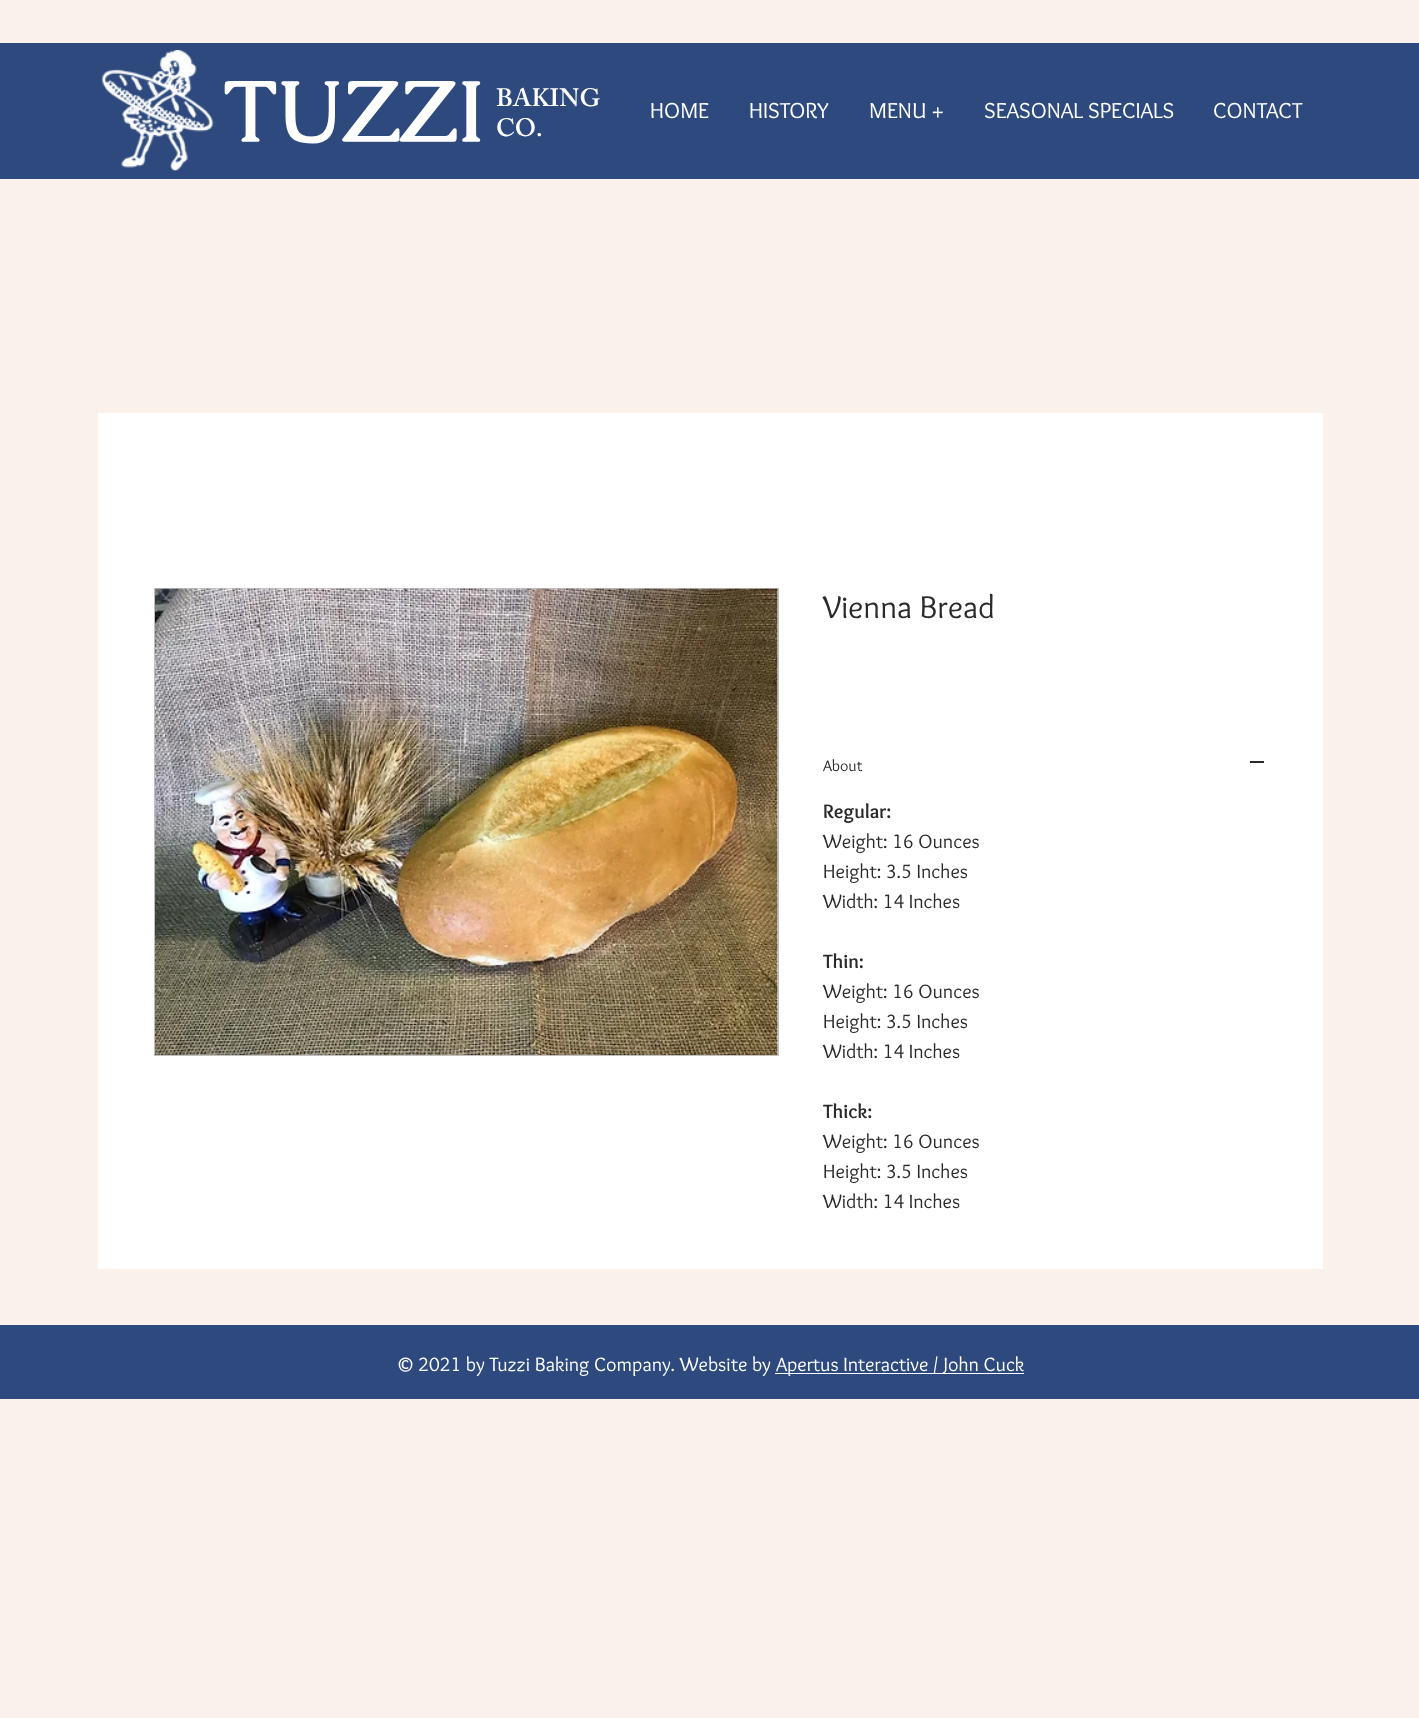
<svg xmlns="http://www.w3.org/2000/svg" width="1419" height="1718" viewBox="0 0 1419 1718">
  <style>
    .t1 { font: bold 86px Caudex; fill: #fff; }
    .t2 { font: 600 25px 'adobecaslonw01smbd'; fill: #fff; }
    .t3 { font: 22.5px Overlock; fill: #fff; }
    .t4 { font: 32.5px Overlock; fill: #2a2a2a; }
    .t5 { font: 16px Overlock; fill: #2a2a2a; }
    .t6 { font: bold 20px Overlock; fill: #2a2a2a; }
    .t7 { font: 20px Overlock; fill: #2a2a2a; }
    .t8 { font: 20px Overlock; fill: #fff; }
  </style>
  <rect width="100%" height="100%" fill="#f9f1ea"/>
  <rect x="0" y="43" width="1419" height="136" fill="#2d497d"/>
  <image x="101" y="50" width="113" height="121" href="images/1.png"/>
  <text x="224" y="141" class="t1">TUZZI</text>
  <text x="496" y="106" class="t2">BAKING</text>
  <text x="496" y="136" class="t2">CO.</text>
  <text x="650" y="118" class="t3">HOME</text>
  <text x="749" y="118" class="t3">HISTORY</text>
  <text x="869" y="118" class="t3">MENU +</text>
  <text x="984" y="118" class="t3">SEASONAL SPECIALS</text>
  <text x="1213" y="118" class="t3">CONTACT</text>
  <rect x="98" y="413" width="1225" height="856" fill="#fff"/>
  <rect x="154.5" y="588.5" width="624" height="467" fill="none" stroke="#c1c0c0"/>
  <image x="155" y="588" width="623" height="467" href="images/2.png"/>
  <text x="823" y="618" class="t4">Vienna Bread</text>
  <text x="823" y="771" class="t5">About</text>
  <rect x="1250" y="761" width="14" height="2" fill="#2a2a2a"/>
  <text x="823" y="818" class="t6">Regular:</text>
  <text x="823" y="848" class="t7">Weight: 16 Ounces</text>
  <text x="823" y="878" class="t7">Height: 3.5 Inches</text>
  <text x="823" y="908" class="t7">Width: 14 Inches</text>
  <text x="823" y="968" class="t6">Thin:</text>
  <text x="823" y="998" class="t7">Weight: 16 Ounces</text>
  <text x="823" y="1028" class="t7">Height: 3.5 Inches</text>
  <text x="823" y="1058" class="t7">Width: 14 Inches</text>
  <text x="823" y="1118" class="t6">Thick:</text>
  <text x="823" y="1148" class="t7">Weight: 16 Ounces</text>
  <text x="823" y="1178" class="t7">Height: 3.5 Inches</text>
  <text x="823" y="1208" class="t7">Width: 14 Inches</text>
  <rect x="0" y="1325" width="1419" height="74" fill="#2d497d"/>
  <text x="396" y="1371" class="t8">© 2021 by Tuzzi Baking Company. Website by</text>
  <rect x="775" y="1373" width="249" height="1" fill="#fff"/>
  <text x="776" y="1371" class="t8">Apertus Interactive / John Cuck</text>
</svg>
